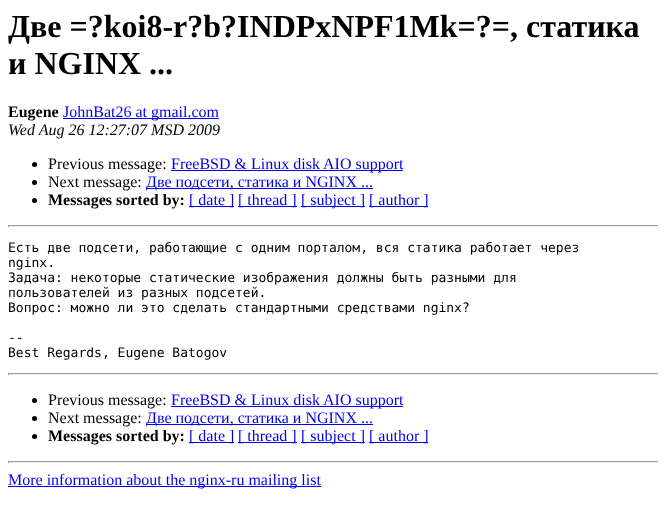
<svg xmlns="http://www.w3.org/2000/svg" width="667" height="525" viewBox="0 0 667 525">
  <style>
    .t1 { font: bold 32px Liberation Serif; fill: #000; }
    .t2 { font: bold 16px Liberation Serif; fill: #000; }
    .t3 { font: 16px Liberation Serif; fill: #00e; }
    .t4 { font: italic 16px Liberation Serif; fill: #000; }
    .t5 { font: 16px Liberation Serif; fill: #000; }
    .t6 { font: 13px DejaVu Sans Mono; fill: #000; }
  </style>
  <rect width="100%" height="100%" fill="#fff"/>
  <text x="8" y="37" class="t1">Две =?koi8-r?b?INDPxNPF1Mk=?=, статика</text>
  <text x="8" y="74" class="t1">и NGINX ...</text>
  <text x="8" y="117" class="t2">Eugene</text>
  <rect x="63" y="118" width="156" height="1" fill="#00e"/>
  <text x="63" y="117" class="t3">JohnBat26 at gmail.com</text>
  <text x="8" y="135" class="t4">Wed Aug 26 12:27:07 MSD 2009</text>
  <circle cx="34.5" cy="164.5" r="2.5" fill="#000"/>
  <text x="48" y="169" class="t5">Previous message:</text>
  <rect x="171" y="170" width="232" height="1" fill="#00e"/>
  <text x="171" y="169" class="t3">FreeBSD &amp; Linux disk AIO support</text>
  <circle cx="34.5" cy="182.5" r="2.5" fill="#000"/>
  <text x="48" y="187" class="t5">Next message:</text>
  <rect x="146" y="188" width="227" height="1" fill="#00e"/>
  <text x="146" y="187" class="t3">Две подсети, статика и NGINX ...</text>
  <circle cx="34.5" cy="200.5" r="2.5" fill="#000"/>
  <text x="48" y="205" class="t2">Messages sorted by:</text>
  <rect x="189" y="206" width="45" height="1" fill="#00e"/>
  <text x="189" y="205" class="t3">[ date ]</text>
  <rect x="238" y="206" width="59" height="1" fill="#00e"/>
  <text x="238" y="205" class="t3">[ thread ]</text>
  <rect x="301" y="206" width="64" height="1" fill="#00e"/>
  <text x="301" y="205" class="t3">[ subject ]</text>
  <rect x="369" y="206" width="59" height="1" fill="#00e"/>
  <text x="369" y="205" class="t3">[ author ]</text>
  <rect x="8" y="225" width="651" height="1" fill="#9f9f9f"/>
  <rect x="658" y="225" width="1" height="2" fill="#eee"/>
  <rect x="8" y="226" width="651" height="1" fill="#eee"/>
  <rect x="8" y="225" width="1" height="2" fill="#9f9f9f"/>
  <text x="8" y="252" class="t6">Есть две подсети, работающие с одним порталом, вся статика работает через</text>
  <text x="8" y="267" class="t6">nginx.</text>
  <text x="8" y="282" class="t6">Задача: некоторые статические изображения должны быть разными для</text>
  <text x="8" y="297" class="t6">пользователей из разных подсетей.</text>
  <text x="8" y="312" class="t6">Вопрос: можно ли это сделать стандартными средствами nginx?</text>
  <text x="8" y="342" class="t6">--</text>
  <text x="8" y="357" class="t6">Best Regards, Eugene Batogov</text>
  <rect x="8" y="373" width="651" height="1" fill="#9f9f9f"/>
  <rect x="658" y="373" width="1" height="2" fill="#eee"/>
  <rect x="8" y="374" width="651" height="1" fill="#eee"/>
  <rect x="8" y="373" width="1" height="2" fill="#9f9f9f"/>
  <circle cx="34.5" cy="400.5" r="2.5" fill="#000"/>
  <text x="48" y="405" class="t5">Previous message:</text>
  <rect x="171" y="406" width="232" height="1" fill="#00e"/>
  <text x="171" y="405" class="t3">FreeBSD &amp; Linux disk AIO support</text>
  <circle cx="34.5" cy="418.5" r="2.5" fill="#000"/>
  <text x="48" y="423" class="t5">Next message:</text>
  <rect x="146" y="424" width="227" height="1" fill="#00e"/>
  <text x="146" y="423" class="t3">Две подсети, статика и NGINX ...</text>
  <circle cx="34.5" cy="436.5" r="2.5" fill="#000"/>
  <text x="48" y="441" class="t2">Messages sorted by:</text>
  <rect x="189" y="442" width="45" height="1" fill="#00e"/>
  <text x="189" y="441" class="t3">[ date ]</text>
  <rect x="238" y="442" width="59" height="1" fill="#00e"/>
  <text x="238" y="441" class="t3">[ thread ]</text>
  <rect x="301" y="442" width="64" height="1" fill="#00e"/>
  <text x="301" y="441" class="t3">[ subject ]</text>
  <rect x="369" y="442" width="59" height="1" fill="#00e"/>
  <text x="369" y="441" class="t3">[ author ]</text>
  <rect x="8" y="461" width="651" height="1" fill="#9f9f9f"/>
  <rect x="658" y="461" width="1" height="2" fill="#eee"/>
  <rect x="8" y="462" width="651" height="1" fill="#eee"/>
  <rect x="8" y="461" width="1" height="2" fill="#9f9f9f"/>
  <rect x="8" y="486" width="313" height="1" fill="#00e"/>
  <text x="8" y="485" class="t3">More information about the nginx-ru mailing list</text>
</svg>
